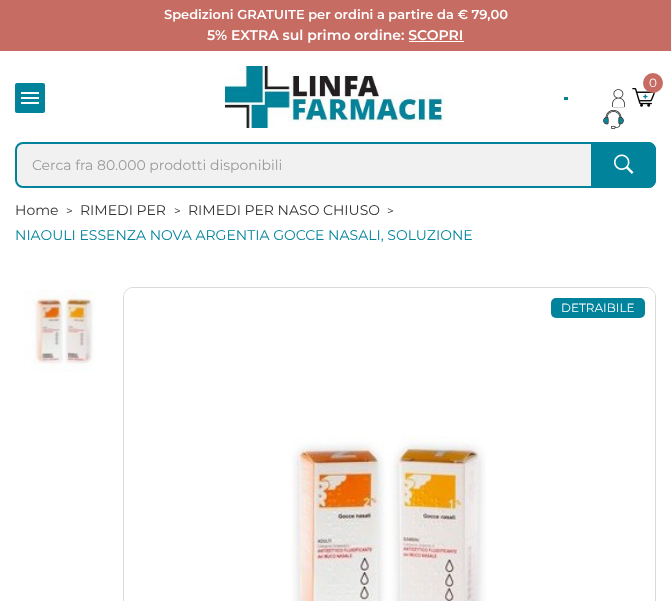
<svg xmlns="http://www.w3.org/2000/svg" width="671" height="601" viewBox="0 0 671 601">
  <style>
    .t1 { font: 600 13px Montserrat; fill: #fff; }
    .t2 { font: 600 14px Montserrat; fill: #fff; }
    .t3 { font: 12px Montserrat; fill: #fff; }
    .t4 { font: 14px Montserrat; fill: #999; }
    .t5 { font: 14px Montserrat; fill: #333; }
    .t6 { font: 12px Montserrat; fill: #333; }
    .t7 { font: 14px Montserrat; fill: #00839b; }
  </style>
  <rect width="100%" height="100%" fill="#fff"/>
  <rect x="0" y="0" width="671" height="51" fill="#c66c63"/>
  <text x="164" y="19" class="t1">Spedizioni GRATUITE per ordini a partire da € 79,00</text>
  <text x="207" y="40" class="t2">5% EXTRA sul primo ordine: SCOPRI</text>
  <rect x="409" y="41" width="55" height="1" fill="#fff"/>
  <rect x="15" y="83" width="30" height="30" rx="2" fill="#00839b"/>
  <image x="21" y="92" width="18" height="12" href="images/1.png"/>
  <image x="225" y="66" width="220" height="62" href="images/2.png"/>
  <image x="632" y="88" width="23" height="19" href="images/3.png"/>
  <circle cx="653" cy="83" r="10" fill="#c66c63"/>
  <text x="649" y="87" class="t3">0</text>
  <rect x="564" y="97" width="4" height="3" fill="#088197"/>
  <image x="612" y="89" width="13" height="19" href="images/4.png"/>
  <image x="603" y="110" width="21" height="19" href="images/5.png"/>
  <rect x="16" y="143" width="639" height="44" rx="7" fill="#f1f1f1" stroke="#00839b" stroke-width="2"/>
  <text x="32" y="170" class="t4">Cerca fra 80.000 prodotti disponibili</text>
  <path d="M591 142H648C652.5 142 656 145.5 656 150V180C656 184.5 652.5 188 648 188H591Z" fill="#00839b"/>
  <image x="614" y="154" width="20" height="20" href="images/6.png"/>
  <text x="15" y="215" class="t5">Home</text>
  <text x="66" y="215" class="t6">&gt;</text>
  <text x="80" y="215" class="t5">RIMEDI PER</text>
  <text x="174" y="215" class="t6">&gt;</text>
  <text x="188" y="215" class="t5">RIMEDI PER NASO CHIUSO</text>
  <text x="387" y="215" class="t6">&gt;</text>
  <text x="15" y="240" class="t7">NIAOULI ESSENZA NOVA ARGENTIA GOCCE NASALI, SOLUZIONE</text>
  <image x="23" y="290" width="72" height="82" href="images/7.png"/>
  <rect x="123.5" y="287.5" width="532" height="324" rx="9.5" fill="none" stroke="#d9d9d9"/>
  <rect x="124" y="288" width="531" height="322" rx="9" fill="#fff"/>
  <rect x="551" y="298" width="94" height="20" rx="5" fill="#00839b"/>
  <text x="561" y="312" class="t3">DETRAIBILE</text>
  <image x="291" y="436" width="195" height="165" href="images/8.png"/>
</svg>
